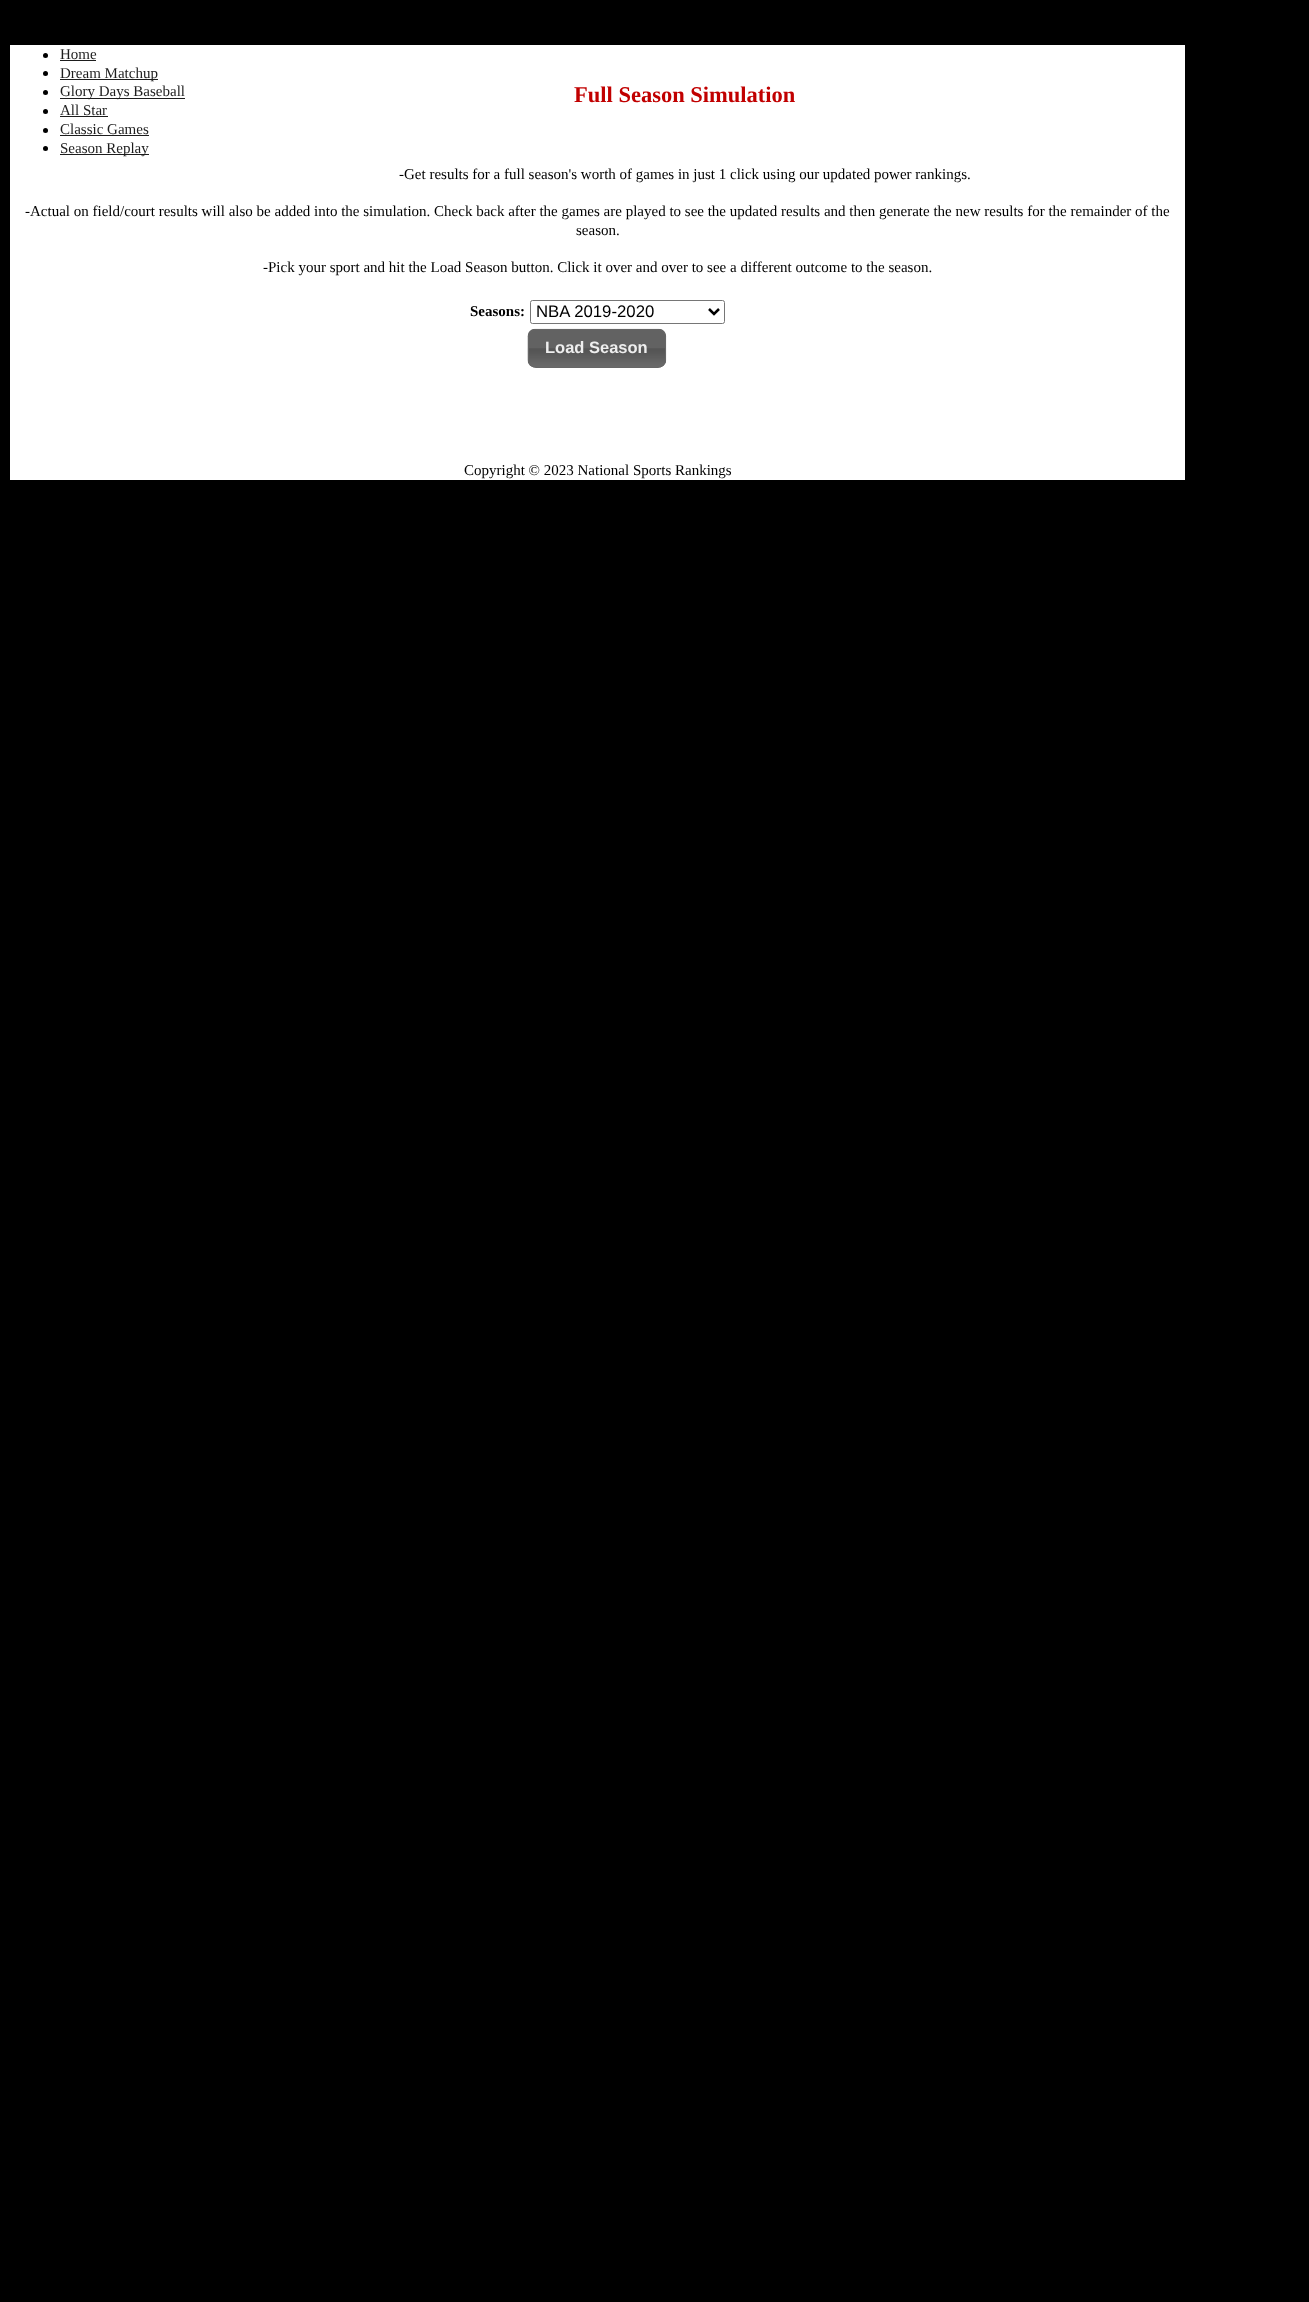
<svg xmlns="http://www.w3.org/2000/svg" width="1309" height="2302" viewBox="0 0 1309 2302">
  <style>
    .t1 { font: 15px Liberation Serif; fill: #1d1d1d; }
    .t2 { font: bold 22.5px Liberation Serif; fill: #c10000; }
    .t3 { font: 15px Liberation Serif; fill: #000; }
    .t4 { font: bold 15px Liberation Serif; fill: #000; }
    .t5 { font: 16.75px Liberation Sans; fill: #000; }
    .t6 { font: bold 16.5px Liberation Sans; fill: #eee; }
  </style>
  <rect width="100%" height="100%" fill="#000"/>
  <rect x="10" y="45" width="1175" height="435" fill="#fff"/>
  <circle cx="45.5" cy="55.5" r="2.5" fill="#000"/>
  <text x="60" y="59" class="t1">Home</text>
  <rect x="60" y="60" width="36" height="1" fill="#1d1d1d"/>
  <circle cx="45.5" cy="73.5" r="2.5" fill="#000"/>
  <rect x="60" y="79" width="98" height="1" fill="#1d1d1d"/>
  <text x="60" y="78" class="t1">Dream Matchup</text>
  <circle cx="45.5" cy="92.5" r="2.5" fill="#000"/>
  <rect x="60" y="98" width="125" height="1" fill="#1d1d1d"/>
  <text x="60" y="96" class="t1">Glory Days Baseball</text>
  <circle cx="45.5" cy="111.5" r="2.5" fill="#000"/>
  <text x="60" y="115" class="t1">All Star</text>
  <rect x="60" y="116" width="48" height="1" fill="#1d1d1d"/>
  <circle cx="45.5" cy="130.5" r="2.5" fill="#000"/>
  <text x="60" y="134" class="t1">Classic Games</text>
  <rect x="60" y="135" width="89" height="1" fill="#1d1d1d"/>
  <circle cx="45.5" cy="148.5" r="2.5" fill="#000"/>
  <rect x="60" y="154" width="89" height="1" fill="#1d1d1d"/>
  <text x="60" y="153" class="t1">Season Replay</text>
  <text x="574" y="102" class="t2">Full Season Simulation</text>
  <text x="399" y="179" class="t3">-Get results for a full season's worth of games in just 1 click using our updated power rankings.</text>
  <text x="25" y="216" class="t3">-Actual on field/court results will also be added into the simulation. Check back after the games are played to see the updated results and then generate the new results for the remainder of the</text>
  <text x="576" y="235" class="t3">season.</text>
  <text x="263" y="272" class="t3">-Pick your sport and hit the Load Season button. Click it over and over to see a different outcome to the season.</text>
  <text x="470" y="316" class="t4">Seasons:</text>
  <rect x="530.5" y="300.5" width="194" height="23" rx="2" fill="none" stroke="#767676"/>
  <path d="M709 309L714 314L719 309" fill="none" stroke="#000" stroke-width="2.5"/>
  <text x="536" y="317" class="t5">NBA 2019-2020</text>
  <image x="527" y="328" width="140" height="40" href="images/1.png"/>
  <rect x="528.5" y="329.5" width="137" height="38" rx="7.5" fill="none" stroke="#666"/>
  <text x="545" y="353" class="t6">Load Season</text>
  <text x="464" y="475" class="t3">Copyright © 2023 National Sports Rankings</text>
</svg>
